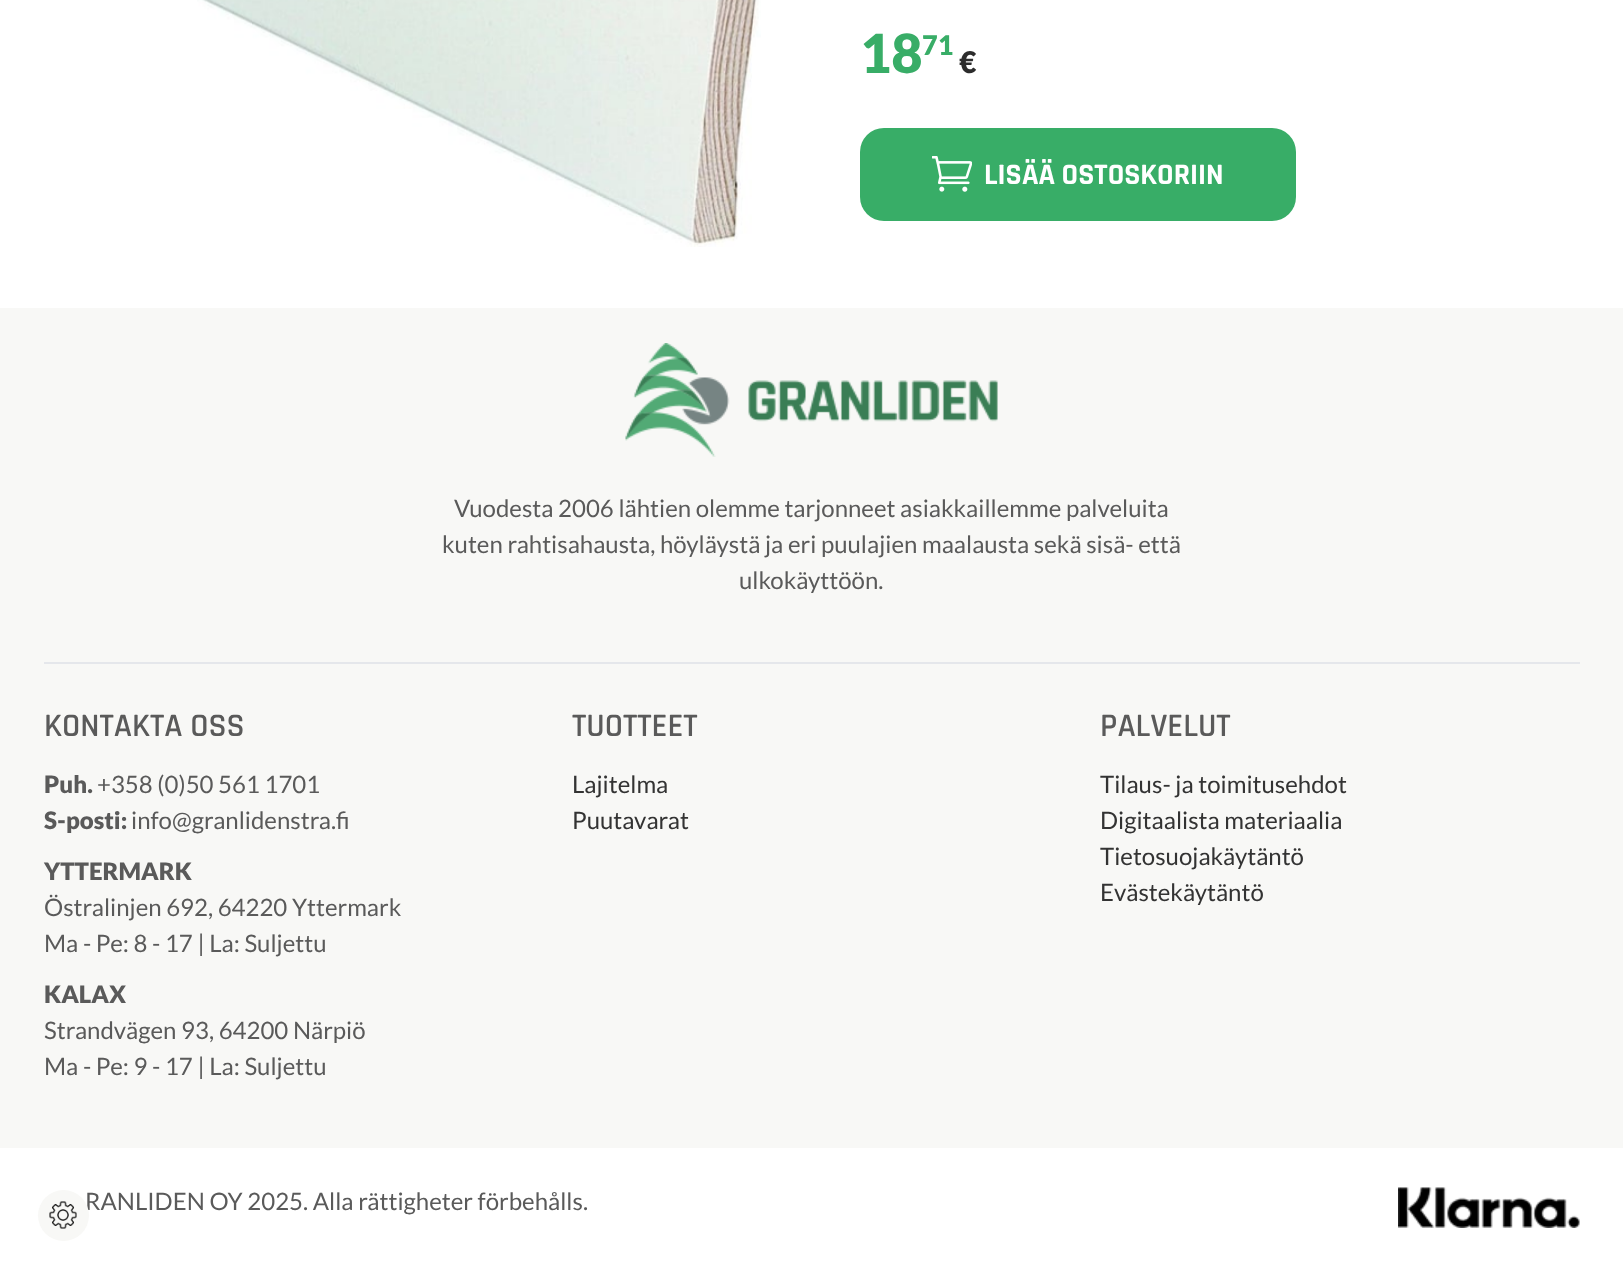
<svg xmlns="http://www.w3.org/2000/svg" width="1623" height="1270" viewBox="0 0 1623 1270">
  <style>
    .t1 { font: 900 54px Lato; fill: #38ad67; }
    .t2 { font: 900 27px Lato; fill: #38ad67; }
    .t3 { font: 900 30px Lato; fill: #2c2c2c; }
    .t4 { font: bold 30px Rajdhani; fill: #fff; }
    .t5 { font: 24px Lato; fill: #5a5a5a; }
    .t6 { font: 600 33px Rajdhani; fill: #5a5a5a; }
    .t7 { font: 900 24px Lato; fill: #5a5a5a; }
    .t8 { font: 24px Lato; fill: #333; }
  </style>
  <rect width="100%" height="100%" fill="#fff"/>
  <image x="197" y="0" width="564" height="247" href="images/1.png"/>
  <text x="860" y="73" class="t1">18</text>
  <text x="922" y="55" class="t2">71</text>
  <text x="959" y="73" class="t3">€</text>
  <rect x="860" y="128" width="436" height="93" rx="24" fill="#38ad67"/>
  <image x="932" y="156" width="40" height="36" href="images/2.png"/>
  <text x="984" y="184" class="t4">LISÄÄ OSTOSKORIIN</text>
  <rect x="0" y="308" width="1623" height="840" fill="#f8f8f6"/>
  <image x="625" y="343" width="373" height="114" href="images/3.png"/>
  <text x="454" y="517" class="t5">Vuodesta 2006 lähtien olemme tarjonneet asiakkaillemme palveluita</text>
  <text x="442" y="553" class="t5">kuten rahtisahausta, höyläystä ja eri puulajien maalausta sekä sisä- että</text>
  <text x="739" y="589" class="t5">ulkokäyttöön.</text>
  <rect x="44" y="662" width="1536" height="2" fill="#e5e7eb"/>
  <text x="44" y="736" class="t6">KONTAKTA OSS</text>
  <text x="44" y="793" class="t7">Puh.</text>
  <text x="97" y="793" class="t5">+358 (0)50 561 1701</text>
  <text x="44" y="829" class="t7">S-posti:</text>
  <text x="131" y="829" class="t5">info@granlidenstra.fi</text>
  <text x="44" y="880" class="t7">YTTERMARK</text>
  <text x="44" y="916" class="t5">Östralinjen 692, 64220 Yttermark</text>
  <text x="44" y="952" class="t5">Ma - Pe: 8 - 17 | La: Suljettu</text>
  <text x="44" y="1003" class="t7">KALAX</text>
  <text x="44" y="1039" class="t5">Strandvägen 93, 64200 Närpiö</text>
  <text x="44" y="1075" class="t5">Ma - Pe: 9 - 17 | La: Suljettu</text>
  <text x="572" y="736" class="t6">TUOTTEET</text>
  <text x="572" y="793" class="t8">Lajitelma</text>
  <text x="572" y="829" class="t8">Puutavarat</text>
  <text x="1100" y="736" class="t6">PALVELUT</text>
  <text x="1100" y="793" class="t8">Tilaus- ja toimitusehdot</text>
  <text x="1100" y="829" class="t8">Digitaalista materiaalia</text>
  <text x="1100" y="865" class="t8">Tietosuojakäytäntö</text>
  <text x="1100" y="901" class="t8">Evästekäytäntö</text>
  <text x="85" y="1210" class="t5">RANLIDEN OY 2025. Alla rättigheter förbehålls.</text>
  <circle cx="63.5" cy="1215.5" r="25.5" fill="#f8f8f6"/>
  <image x="49" y="1201" width="28" height="28" href="images/4.png"/>
  <image x="1398" y="1187" width="182" height="41" href="images/5.png"/>
</svg>
